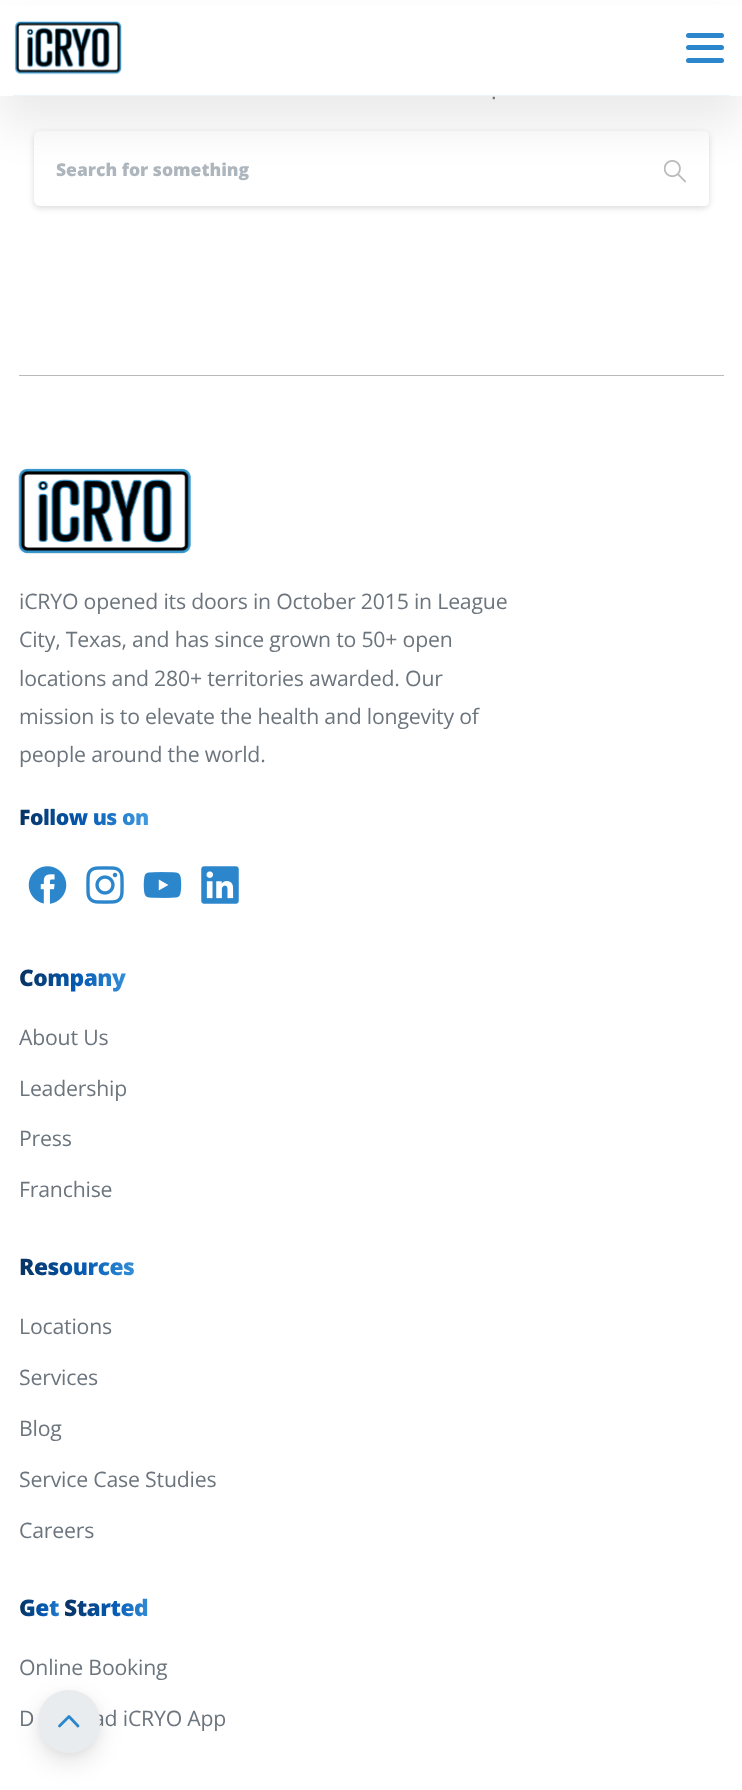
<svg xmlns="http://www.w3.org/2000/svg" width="742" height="1790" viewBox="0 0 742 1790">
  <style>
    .t1 { font: 21.25px Open Sans; letter-spacing: -0.2px; fill: #6c757d; }
    .t2 { font: 800 17.5px Open Sans; fill: #adb5bd; }
    .t3 { font: 800 21.25px Open Sans; letter-spacing: -0.5px; fill: url(#g1); }
    .t4 { font: 800 22.75px Open Sans; letter-spacing: -0.5px; fill: url(#g2); }
    .t5 { font: 800 22.75px Open Sans; letter-spacing: -0.5px; fill: url(#g3); }
    .t6 { font: 800 22.75px Open Sans; letter-spacing: -0.5px; fill: url(#g4); }
    .t7 { font: 800 22.75px Open Sans; letter-spacing: -0.5px; fill: url(#g5); }
  </style>
  <defs>
    <linearGradient id="g1" gradientUnits="userSpaceOnUse" x1="19" y1="818" x2="149" y2="818"><stop offset="0" stop-color="#093260"/><stop offset="0.5" stop-color="#045ab3"/><stop offset="1" stop-color="#409ce2"/></linearGradient>
    <linearGradient id="g2" gradientUnits="userSpaceOnUse" x1="19" y1="978" x2="138" y2="978"><stop offset="0" stop-color="#093260"/><stop offset="0.5" stop-color="#045ab3"/><stop offset="1" stop-color="#409ce2"/></linearGradient>
    <linearGradient id="g3" gradientUnits="userSpaceOnUse" x1="19" y1="1267" x2="147" y2="1267"><stop offset="0" stop-color="#093260"/><stop offset="0.5" stop-color="#045ab3"/><stop offset="1" stop-color="#409ce2"/></linearGradient>
    <linearGradient id="g4" gradientUnits="userSpaceOnUse" x1="19" y1="1608" x2="71" y2="1608"><stop offset="0" stop-color="#093260"/><stop offset="0.5" stop-color="#045ab3"/><stop offset="1" stop-color="#409ce2"/></linearGradient>
    <linearGradient id="g5" gradientUnits="userSpaceOnUse" x1="64" y1="1608" x2="161" y2="1608"><stop offset="0" stop-color="#093260"/><stop offset="0.5" stop-color="#045ab3"/><stop offset="1" stop-color="#409ce2"/></linearGradient>
  </defs>
  <rect width="100%" height="100%" fill="#fff"/>
  <rect x="34" y="133" width="675" height="75" rx="6" fill="#00000026" filter="blur(3px)"/>
  <rect x="34" y="131" width="675" height="75" rx="6" fill="#fff"/>
  <path d="M641 131H704C707 131 709 133 709 136V201C709 204 707 206 704 206H641Z" fill="#fff"/>
  <image x="664" y="160" width="22" height="23" href="images/2.png"/>
  <rect x="0" y="30" width="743" height="96" fill="#00000014" filter="blur(22px)"/>
  <rect x="0" y="5" width="742" height="91" fill="#fff"/>
  <image x="14" y="21" width="108" height="54" href="images/1.png"/>
  <rect x="686" y="33" width="38" height="5" rx="2.5" fill="#2c86cc"/>
  <rect x="686" y="45" width="38" height="5" rx="2.5" fill="#2c86cc"/>
  <rect x="686" y="58" width="38" height="5" rx="2.5" fill="#2c86cc"/>
  <rect x="13" y="95" width="717" height="1" fill="#ebf4fb"/>
  <text x="491" y="99" class="t1">.</text>
  <text x="56" y="176" class="t2">Search for something</text>
  <rect x="19" y="375" width="705" height="1" fill="#bababa"/>
  <image x="18" y="468" width="173" height="86" href="images/3.png"/>
  <text x="19" y="609" class="t1">iCRYO opened its doors in October 2015 in League</text>
  <text x="19" y="647" class="t1">City, Texas, and has since grown to 50+ open</text>
  <text x="19" y="686" class="t1">locations and 280+ territories awarded. Our</text>
  <text x="19" y="724" class="t1">mission is to elevate the health and longevity of</text>
  <text x="19" y="762" class="t1">people around the world.</text>
  <text x="19" y="825" class="t3">Follow us on</text>
  <image x="28" y="866" width="39" height="38" href="images/4.png"/>
  <image x="86" y="866" width="38" height="38" href="images/5.png"/>
  <image x="143" y="872" width="39" height="26" href="images/6.png"/>
  <image x="201" y="866" width="38" height="38" href="images/7.png"/>
  <text x="19" y="986" class="t4">Company</text>
  <text x="19" y="1045" class="t1">About Us</text>
  <text x="19" y="1096" class="t1">Leadership</text>
  <text x="19" y="1146" class="t1">Press</text>
  <text x="19" y="1197" class="t1">Franchise</text>
  <text x="19" y="1275" class="t5">Resources</text>
  <text x="19" y="1334" class="t1">Locations</text>
  <text x="19" y="1385" class="t1">Services</text>
  <text x="19" y="1436" class="t1">Blog</text>
  <text x="19" y="1487" class="t1">Service Case Studies</text>
  <text x="19" y="1538" class="t1">Careers</text>
  <text x="19" y="1616" class="t6">Get</text>
  <text x="64" y="1616" class="t7">Started</text>
  <text x="19" y="1675" class="t1">Online Booking</text>
  <text x="19" y="1726" class="t1">D</text>
  <text x="93" y="1726" class="t1">ad iCRYO App</text>
  <rect x="38" y="1700" width="62" height="63" rx="31" fill="#0000001a" filter="blur(12px)"/>
  <rect x="38" y="1693" width="62" height="62" rx="31" fill="#0000000d" filter="blur(4px)"/>
  <rect x="38" y="1690" width="62" height="63" rx="31" fill="#e9ecef"/>
  <path d="M59.5 1726L69 1716.5L78 1726" fill="none" stroke="#2c86cc" stroke-width="2.8" stroke-linecap="round" stroke-linejoin="round"/>
</svg>
